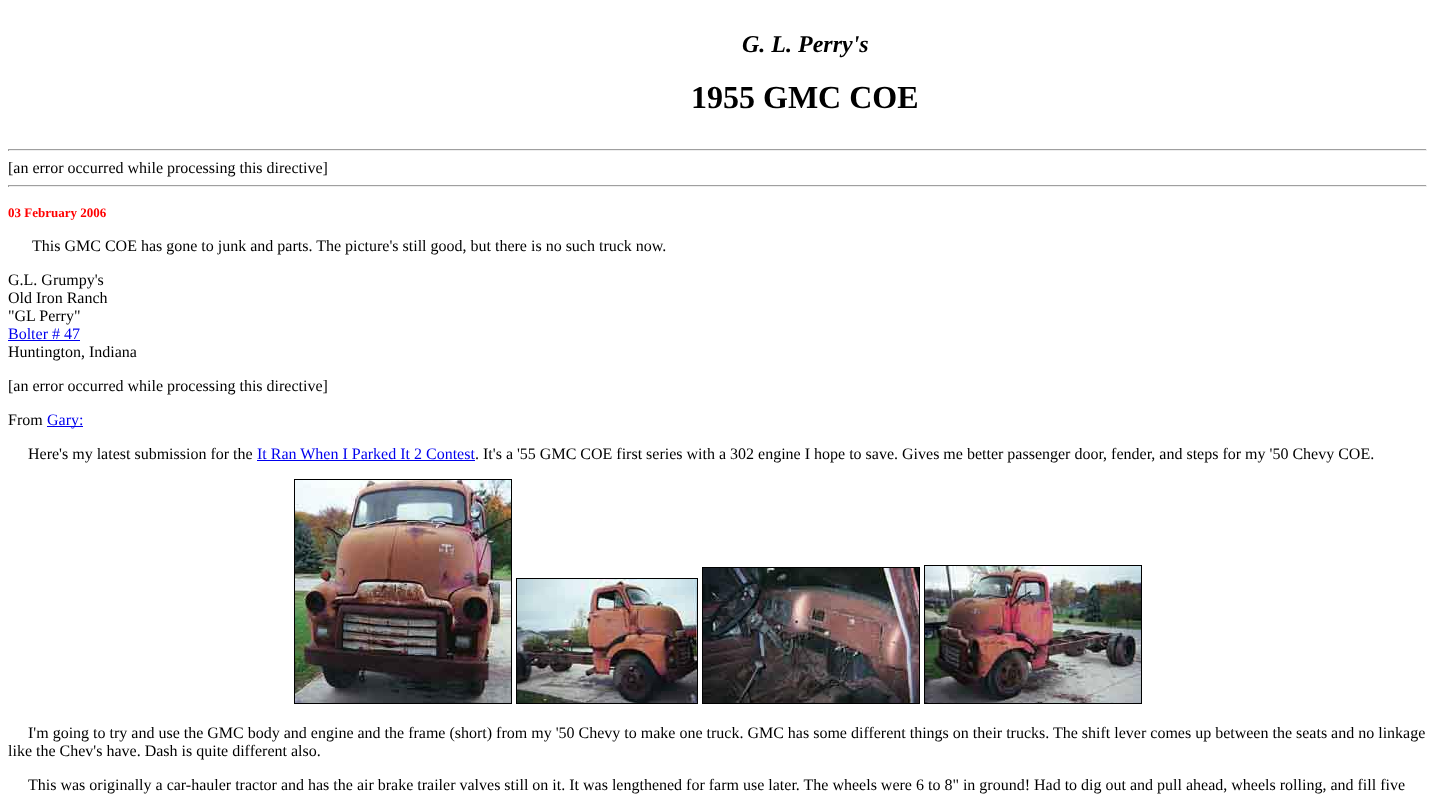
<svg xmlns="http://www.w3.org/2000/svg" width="1435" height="802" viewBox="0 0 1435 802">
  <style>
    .t1 { font: italic bold 24px Liberation Serif; fill: #000; }
    .t2 { font: bold 32px Liberation Serif; fill: #000; }
    .t3 { font: 16px Liberation Serif; fill: #000; }
    .t4 { font: bold 13px Liberation Serif; fill: #f00; }
    .t5 { font: 16px Liberation Serif; fill: #00e; }
  </style>
  <rect width="100%" height="100%" fill="#fff"/>
  <text x="742" y="52" class="t1">G. L. Perry's</text>
  <text x="691" y="108" class="t2">1955 GMC COE</text>
  <rect x="8" y="149" width="1419" height="1" fill="#9f9f9f"/>
  <rect x="1426" y="149" width="1" height="2" fill="#eee"/>
  <rect x="8" y="150" width="1419" height="1" fill="#eee"/>
  <rect x="8" y="149" width="1" height="2" fill="#9f9f9f"/>
  <text x="8" y="173" class="t3">[an error occurred while processing this directive]</text>
  <rect x="8" y="185" width="1419" height="1" fill="#9f9f9f"/>
  <rect x="1426" y="185" width="1" height="2" fill="#eee"/>
  <rect x="8" y="186" width="1419" height="1" fill="#eee"/>
  <rect x="8" y="185" width="1" height="2" fill="#9f9f9f"/>
  <text x="8" y="217" class="t4">03 February 2006</text>
  <text x="32" y="251" class="t3">This GMC COE has gone to junk and parts. The picture's still good, but there is no such truck now.</text>
  <text x="8" y="285" class="t3">G.L. Grumpy's</text>
  <text x="8" y="303" class="t3">Old Iron Ranch</text>
  <text x="8" y="321" class="t3">"GL Perry"</text>
  <text x="8" y="339" class="t5">Bolter # 47</text>
  <rect x="8" y="340" width="72" height="1" fill="#00e"/>
  <text x="8" y="357" class="t3">Huntington, Indiana</text>
  <text x="8" y="391" class="t3">[an error occurred while processing this directive]</text>
  <text x="8" y="425" class="t3">From</text>
  <rect x="47" y="426" width="36" height="1" fill="#00e"/>
  <text x="47" y="425" class="t5">Gary:</text>
  <text x="28" y="459" class="t3">Here's my latest submission for the</text>
  <text x="257" y="459" class="t5">It Ran When I Parked It 2 Contest</text>
  <rect x="257" y="460" width="218" height="1" fill="#00e"/>
  <text x="475" y="459" class="t3">. It's a '55 GMC COE first series with a 302 engine I hope to save. Gives me better passenger door, fender, and steps for my '50 Chevy COE.</text>
  <rect x="294.5" y="479.5" width="217" height="224" fill="none" stroke="#000"/>
  <image x="295" y="480" width="216" height="223" href="images/1.png"/>
  <rect x="924.5" y="565.5" width="217" height="138" fill="none" stroke="#000"/>
  <rect x="702.5" y="567.5" width="217" height="136" fill="none" stroke="#000"/>
  <image x="925" y="566" width="216" height="137" href="images/2.png"/>
  <rect x="516.5" y="578.5" width="181" height="125" fill="none" stroke="#000"/>
  <image x="703" y="568" width="216" height="135" href="images/3.png"/>
  <image x="517" y="579" width="180" height="124" href="images/4.png"/>
  <text x="28" y="738" class="t3">I'm going to try and use the GMC body and engine and the frame (short) from my '50 Chevy to make one truck. GMC has some different things on their trucks. The shift lever comes up between the seats and no linkage</text>
  <text x="8" y="756" class="t3">like the Chev's have. Dash is quite different also.</text>
  <text x="28" y="790" class="t3">This was originally a car-hauler tractor and has the air brake trailer valves still on it. It was lengthened for farm use later. The wheels were 6 to 8" in ground! Had to dig out and pull ahead, wheels rolling, and fill five</text>
</svg>
